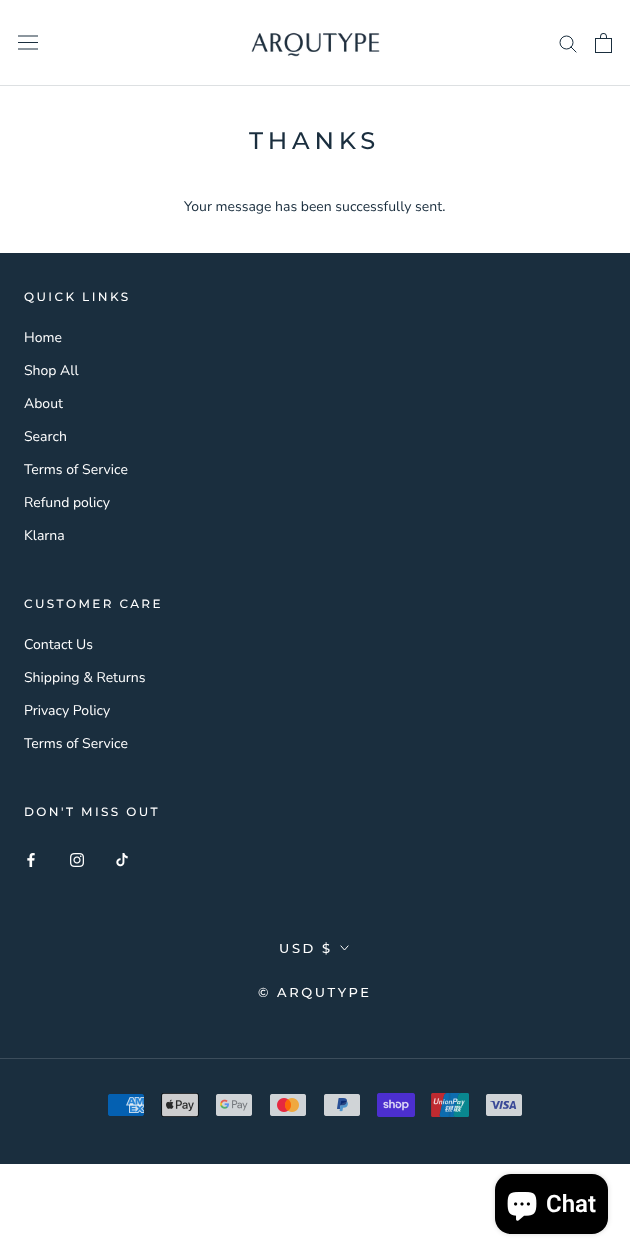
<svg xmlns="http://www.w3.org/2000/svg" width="630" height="1255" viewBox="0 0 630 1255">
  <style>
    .t1 { font: 500 24px Montserrat; letter-spacing: 4.75px; fill: #1a2e3e; }
    .t2 { font: 14px Nunito Sans; fill: #1a2e3e; }
    .t3 { font: 500 12px Montserrat; letter-spacing: 2.4px; fill: #fff; }
    .t4 { font: 14px Nunito Sans; fill: #fff; }
    .t5 { font: 500 13px Montserrat; letter-spacing: 2.6px; fill: #fff; }
    .t6 { font: 600 24px Roboto; fill: #fff; }
  </style>
  <rect width="100%" height="100%" fill="#fff"/>
  <rect x="0" y="85" width="630" height="1" fill="#dde0e2"/>
  <image x="18" y="35" width="20" height="15" href="images/1.png"/>
  <image x="251" y="32" width="129" height="25" href="images/2.png"/>
  <path d="M576 52L571 47" fill="none" stroke="#1a2e3e" stroke-linecap="square"/>
  <circle cx="566.5" cy="42.5" r="6.5" fill="none" stroke="#1a2e3e"/>
  <image x="595" y="33" width="17" height="20" href="images/3.png"/>
  <text x="249" y="149" class="t1">THANKS</text>
  <text x="184" y="211" class="t2">Your message has been successfully sent.</text>
  <rect x="0" y="253" width="630" height="911" fill="#1a2e3e"/>
  <text x="24" y="301" class="t3">QUICK LINKS</text>
  <text x="24" y="342" class="t4">Home</text>
  <text x="24" y="375" class="t4">Shop All</text>
  <text x="24" y="408" class="t4">About</text>
  <text x="24" y="441" class="t4">Search</text>
  <text x="24" y="474" class="t4">Terms of Service</text>
  <text x="24" y="507" class="t4">Refund policy</text>
  <text x="24" y="540" class="t4">Klarna</text>
  <text x="24" y="608" class="t3">CUSTOMER CARE</text>
  <text x="24" y="649" class="t4">Contact Us</text>
  <text x="24" y="682" class="t4">Shipping &amp; Returns</text>
  <text x="24" y="715" class="t4">Privacy Policy</text>
  <text x="24" y="748" class="t4">Terms of Service</text>
  <text x="24" y="816" class="t3">DON'T MISS OUT</text>
  <image x="27" y="853" width="8" height="14" href="images/4.png"/>
  <image x="70" y="853" width="14" height="14" href="images/5.png"/>
  <image x="116" y="853" width="12" height="14" href="images/6.png"/>
  <text x="279" y="953" class="t5">USD $</text>
  <path d="M348 946L344.5 950L341 946" fill="none" stroke="#fff" stroke-linecap="square"/>
  <text x="258" y="997" class="t5">© ARQUTYPE</text>
  <rect x="0" y="1058" width="630" height="1" fill="#3c4d5b"/>
  <image x="108" y="1094" width="36" height="22" href="images/7.png"/>
  <image x="161" y="1093" width="38" height="24" href="images/8.png"/>
  <image x="216" y="1094" width="36" height="22" href="images/9.png"/>
  <image x="270" y="1094" width="36" height="22" href="images/10.png"/>
  <image x="324" y="1094" width="36" height="22" href="images/11.png"/>
  <image x="377" y="1093" width="38" height="24" href="images/12.png"/>
  <image x="431" y="1093" width="38" height="24" href="images/13.png"/>
  <image x="486" y="1094" width="36" height="22" href="images/14.png"/>
  <rect x="495" y="1174" width="113" height="60" rx="16" fill="#00000026" filter="blur(2.5px)"/>
  <rect x="495" y="1174" width="113" height="60" rx="16" fill="#000"/>
  <image x="507" y="1192" width="30" height="29" href="images/15.png"/>
  <text x="546" y="1212" class="t6">Chat</text>
</svg>
